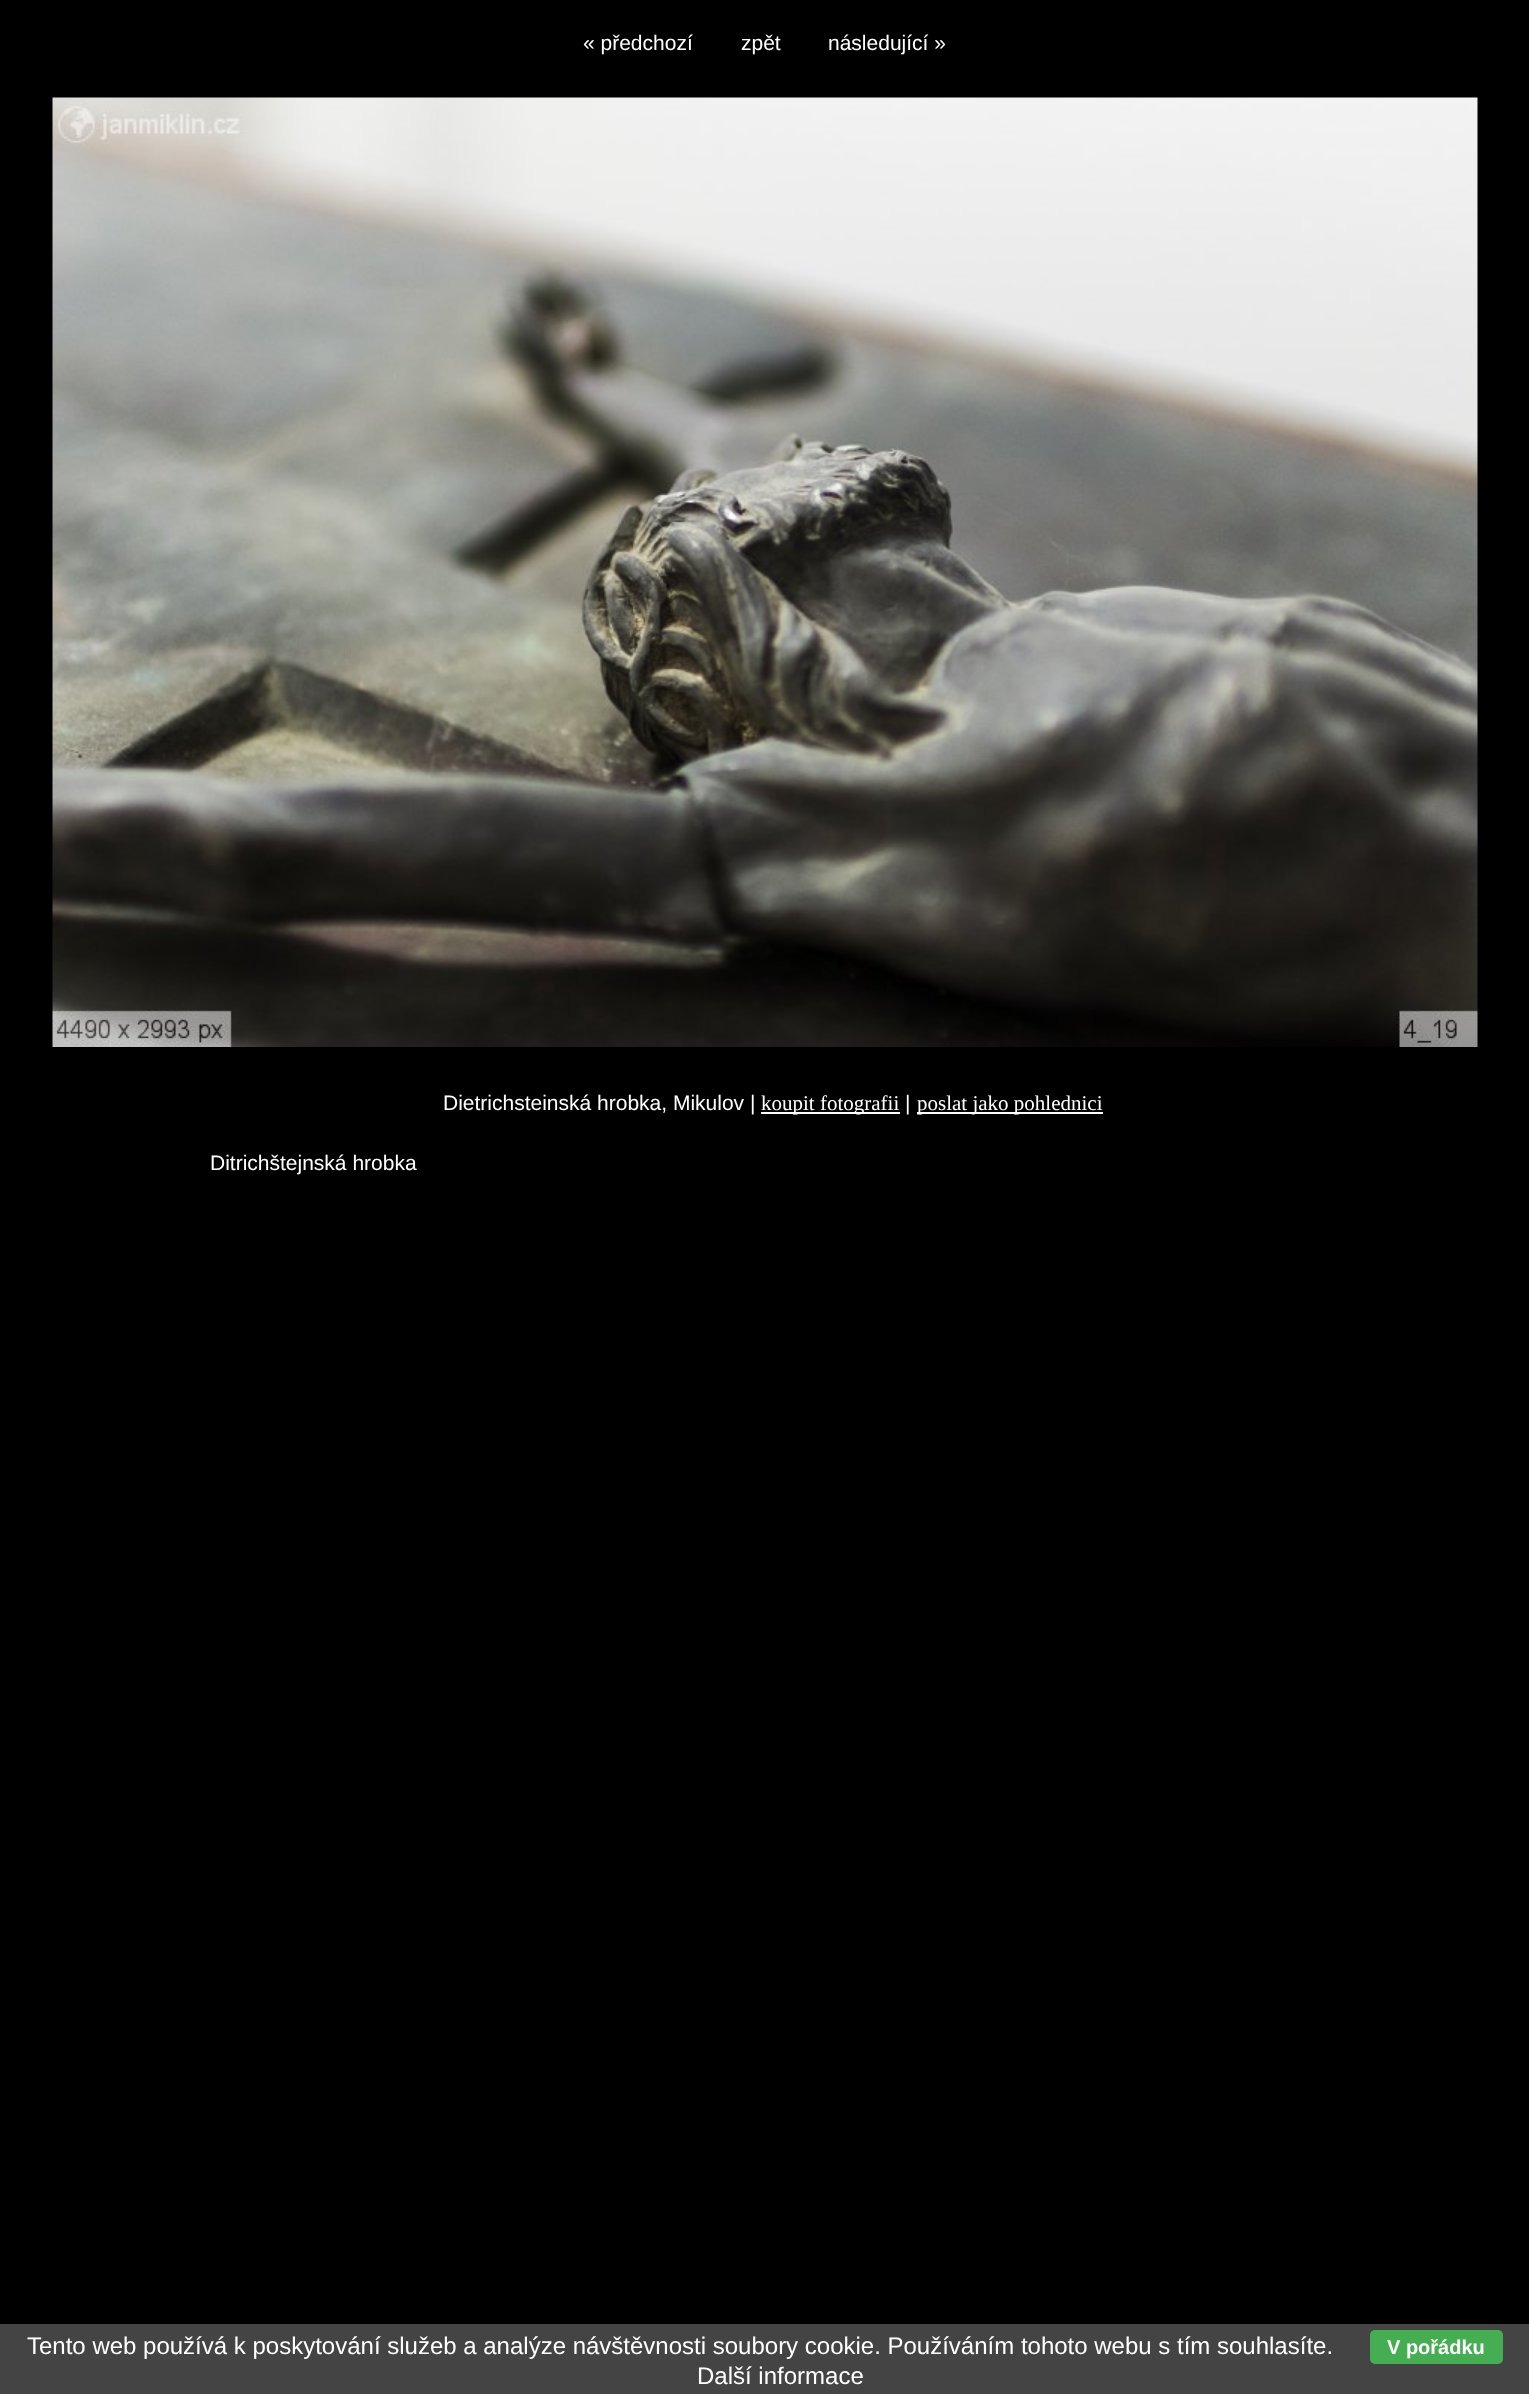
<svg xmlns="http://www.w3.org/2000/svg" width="1529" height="2394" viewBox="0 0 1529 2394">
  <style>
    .t1 { font: 21px Liberation Sans; fill: #fff; }
    .t2 { font: 21px Liberation Serif; fill: #fff; }
    .t3 { font: 24px Liberation Sans; fill: #fff; }
    .t4 { font: bold 20px Liberation Sans; fill: #fff; }
  </style>
  <rect width="100%" height="100%" fill="#000"/>
  <text x="583" y="50" class="t1">« předchozí</text>
  <text x="741" y="50" class="t1">zpět</text>
  <text x="828" y="50" class="t1">následující »</text>
  <image x="52" y="97" width="1426" height="950" href="images/1.png"/>
  <text x="443" y="1110" class="t1">Dietrichsteinská hrobka, Mikulov |</text>
  <rect x="761" y="1112" width="139" height="2" fill="#fff"/>
  <text x="761" y="1110" class="t2">koupit fotografii</text>
  <text x="905" y="1110" class="t1">|</text>
  <rect x="917" y="1112" width="186" height="2" fill="#fff"/>
  <text x="917" y="1110" class="t2">poslat jako pohlednici</text>
  <text x="210" y="1170" class="t1">Ditrichštejnská hrobka</text>
  <rect x="0" y="2324" width="1529" height="70" fill="#444"/>
  <text x="27" y="2354" class="t3">Tento web používá k poskytování služeb a analýze návštěvnosti soubory cookie. Používáním tohoto webu s tím souhlasíte.</text>
  <rect x="1370" y="2330" width="133" height="34" rx="5" fill="#45ae52"/>
  <text x="1387" y="2354" class="t4">V pořádku</text>
  <text x="697" y="2384" class="t3">Další informace</text>
</svg>
